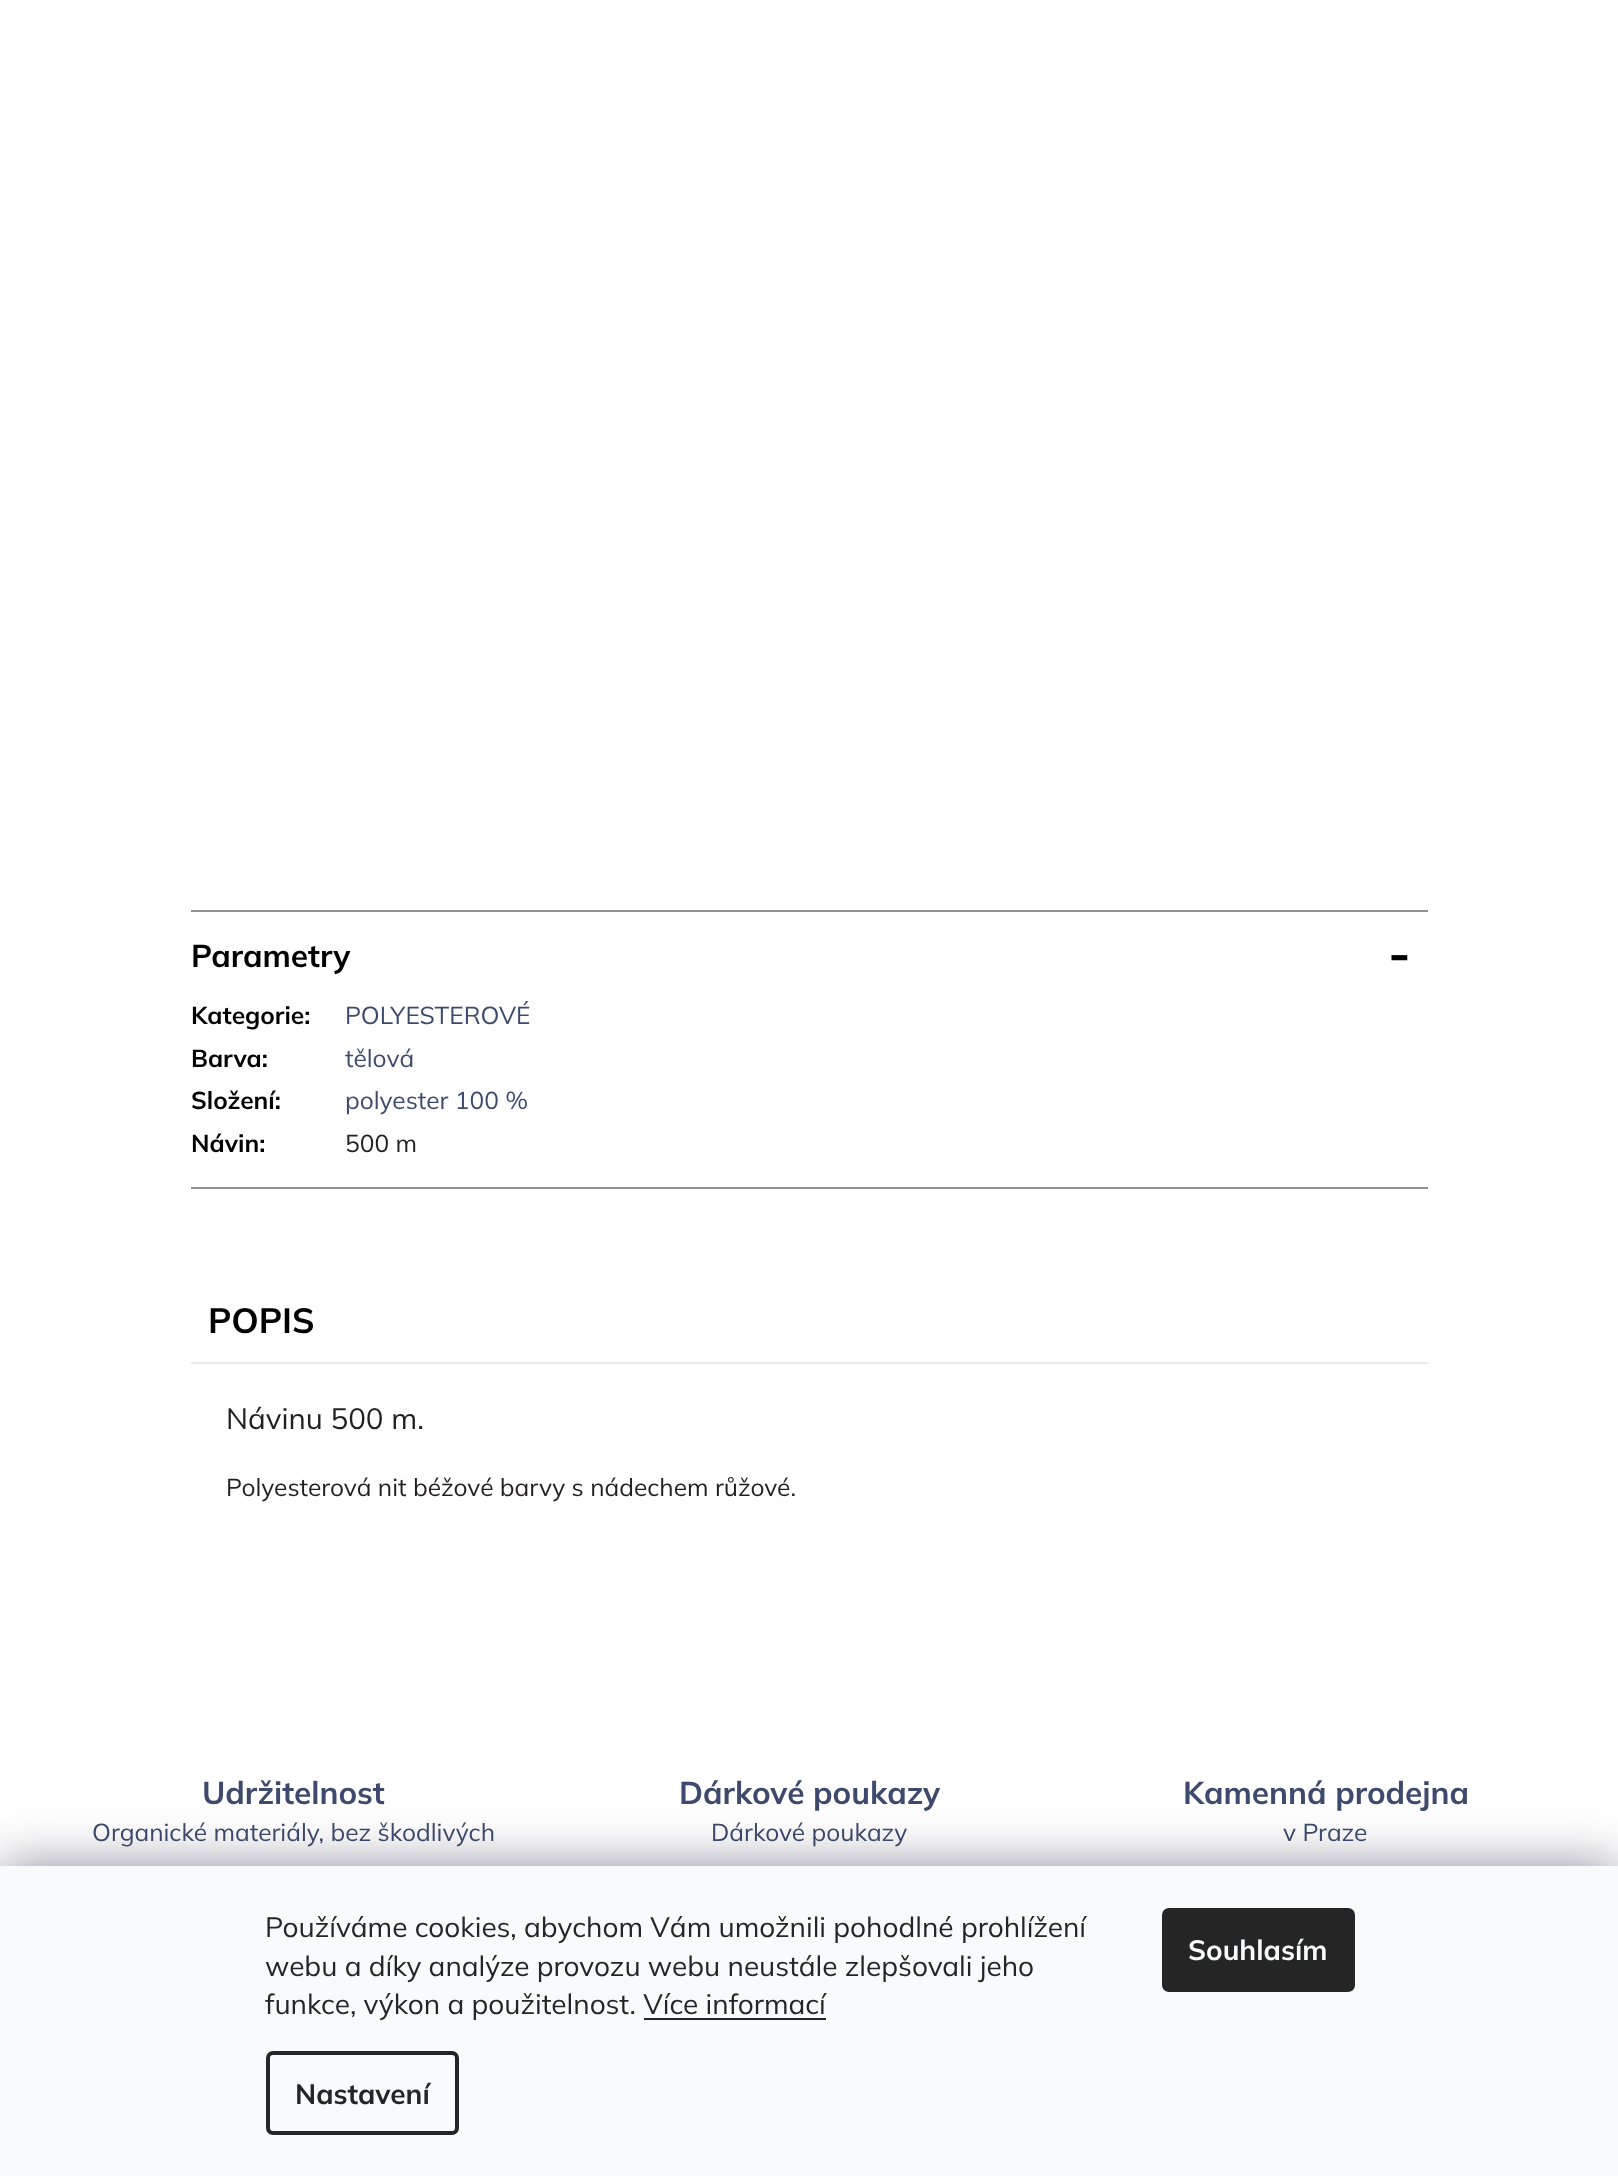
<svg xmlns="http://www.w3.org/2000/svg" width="1618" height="2176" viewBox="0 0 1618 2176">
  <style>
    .t1 { font: bold 31.5px Mulish; fill: #000; }
    .t2 { font: bold 52px Mulish; fill: #000; }
    .t3 { font: bold 24.5px Mulish; fill: #000; }
    .t4 { font: 24.5px Mulish; fill: #3d4a6e; }
    .t5 { font: 24.5px Mulish; fill: #231f20; }
    .t6 { font: bold 35px Mulish; fill: #000; }
    .t7 { font: 29.5px Mulish; fill: #231f20; }
    .t8 { font: bold 31.5px Mulish; fill: #3d4a6e; }
    .t9 { font: 28px Mulish; fill: #252525; }
    .t10 { font: bold 28px Mulish; fill: #252525; }
    .t11 { font: bold 28px Mulish; fill: #f8fafb; }
  </style>
  <rect width="100%" height="100%" fill="#fff"/>
  <rect x="191" y="910" width="1237" height="2" fill="#909090"/>
  <rect x="191" y="1187" width="1237" height="2" fill="#909090"/>
  <text x="191" y="967" class="t1">Parametry</text>
  <text x="1388" y="972" class="t2">-</text>
  <text x="191" y="1024" class="t3">Kategorie:</text>
  <text x="345" y="1024" class="t4">POLYESTEROVÉ</text>
  <text x="191" y="1067" class="t3">Barva:</text>
  <text x="345" y="1067" class="t4">tělová</text>
  <text x="191" y="1109" class="t3">Složení:</text>
  <text x="345" y="1109" class="t4">polyester 100 %</text>
  <text x="191" y="1152" class="t3">Návin:</text>
  <text x="345" y="1152" class="t5">500 m</text>
  <rect x="191" y="1362" width="1237" height="2" fill="#eee9e9"/>
  <text x="208" y="1333" class="t6">POPIS</text>
  <text x="226" y="1429" class="t7">Návinu 500 m.</text>
  <text x="226" y="1496" class="t5">Polyesterová nit béžové barvy s nádechem růžové.</text>
  <text x="202" y="1804" class="t8">Udržitelnost</text>
  <text x="92" y="1841" class="t4">Organické materiály, bez škodlivých</text>
  <text x="679" y="1804" class="t8">Dárkové poukazy</text>
  <text x="711" y="1841" class="t4">Dárkové poukazy</text>
  <text x="1183" y="1804" class="t8">Kamenná prodejna</text>
  <text x="1283" y="1841" class="t4">v Praze</text>
  <rect x="0" y="1866" width="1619" height="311" fill="#1b193980" filter="blur(26px)"/>
  <rect x="0" y="1866" width="1618" height="310" fill="#f8fafb"/>
  <text x="265" y="1937" class="t9">Používáme cookies, abychom Vám umožnili pohodlné prohlížení</text>
  <text x="265" y="1976" class="t9">webu a díky analýze provozu webu neustále zlepšovali jeho</text>
  <text x="265" y="2014" class="t9">funkce, výkon a použitelnost. Více informací</text>
  <rect x="644" y="2018" width="182" height="2" fill="#252525"/>
  <rect x="268" y="2053" width="189" height="80" rx="5" fill="none" stroke="#252525" stroke-width="4"/>
  <text x="295" y="2104" class="t10">Nastavení</text>
  <rect x="1162" y="1908" width="193" height="84" rx="7" fill="#252525"/>
  <text x="1188" y="1960" class="t11">Souhlasím</text>
</svg>
